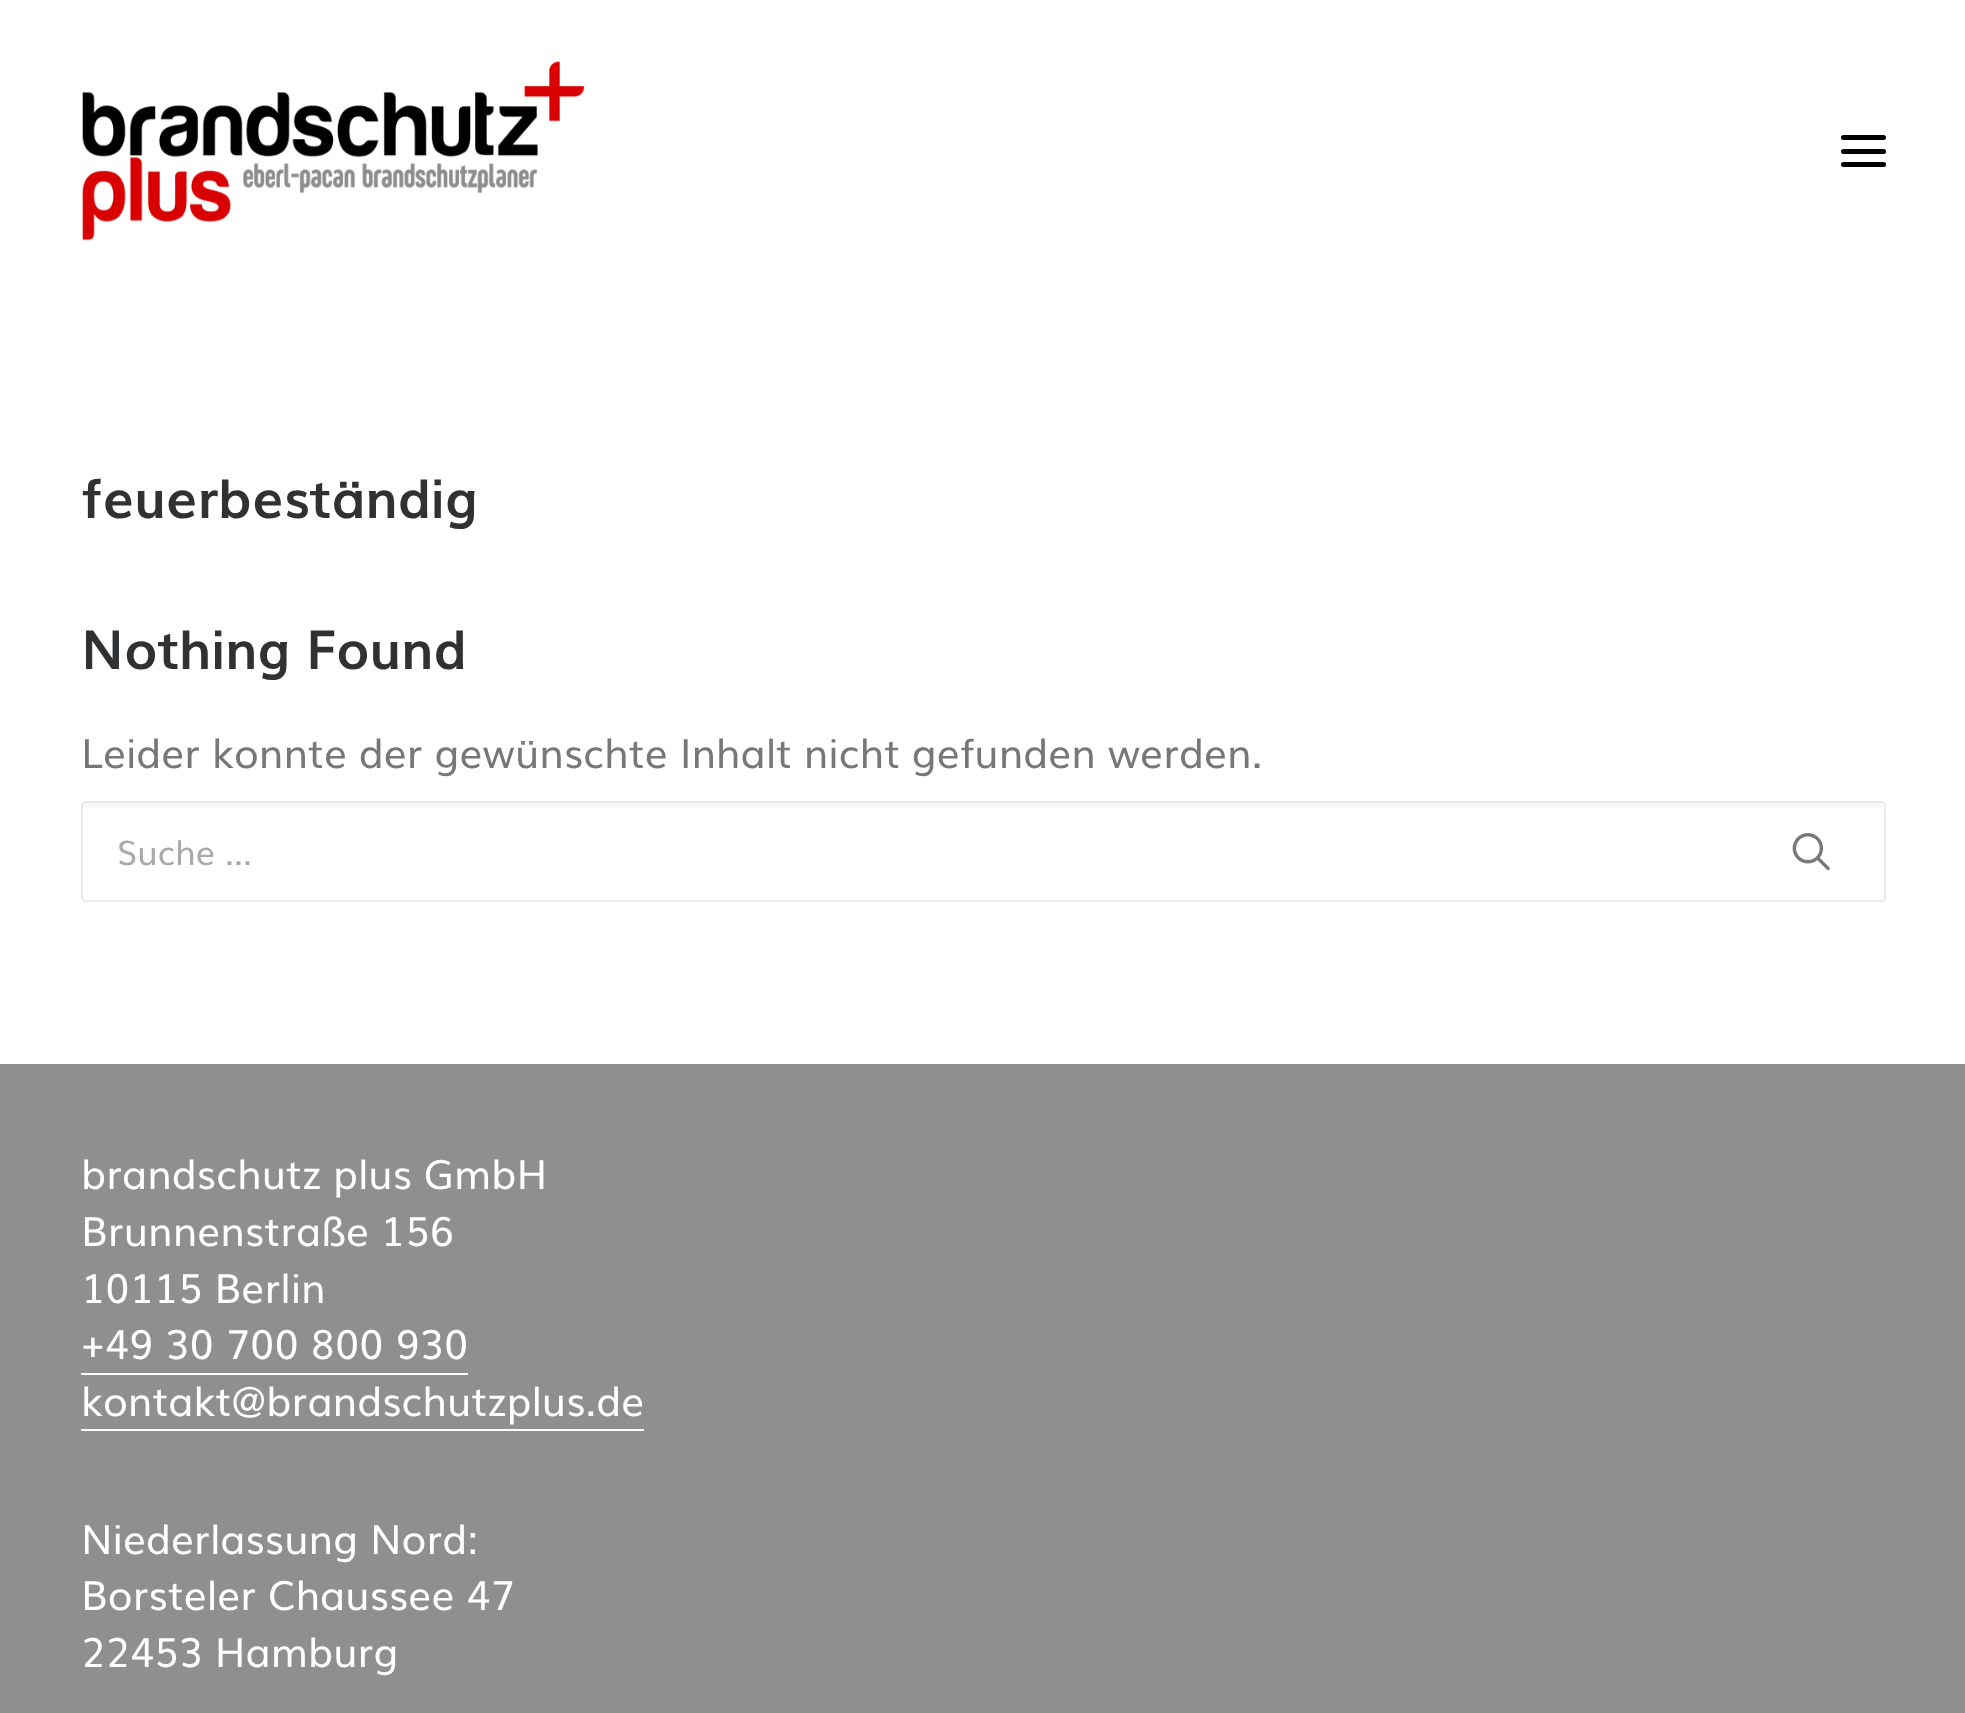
<svg xmlns="http://www.w3.org/2000/svg" width="1965" height="1713" viewBox="0 0 1965 1713">
  <style>
    .t1 { font: bold 54px Muli; fill: #303133; }
    .t2 { font: 40.5px Muli; fill: #777; }
    .t3 { font: 34px Muli; fill: #a9a9a9; }
    .t4 { font: 40.5px Muli; fill: #fff; }
  </style>
  <rect width="100%" height="100%" fill="#fff"/>
  <image x="82" y="61" width="503" height="180" href="images/1.png"/>
  <rect x="1841" y="149" width="45" height="5" rx="2.5" fill="#000"/>
  <rect x="1841" y="135" width="45" height="5" rx="2.5" fill="#000"/>
  <rect x="1841" y="162" width="45" height="5" rx="2.5" fill="#000"/>
  <text x="81" y="518" class="t1">feuerbeständig</text>
  <text x="81" y="669" class="t1">Nothing Found</text>
  <text x="81" y="768" class="t2">Leider konnte der gewünschte Inhalt nicht gefunden werden.</text>
  <path d="M86 808H1881C1882 808 1883 809 1883 810V804L1881 803H85C82 803 83 808 83 810C83 809 84 808 86 808Z" fill="#f9f9f9"/>
  <rect x="82" y="802" width="1803" height="99" rx="4" fill="none" stroke="#eaeaea" stroke-width="2"/>
  <text x="117" y="865" class="t3">Suche ...</text>
  <image x="1792" y="833" width="38" height="38" href="images/2.png"/>
  <rect x="0" y="1064" width="1965" height="649" fill="#8f8f8f"/>
  <text x="81" y="1189" class="t4">brandschutz plus GmbH</text>
  <text x="81" y="1246" class="t4">Brunnenstraße 156</text>
  <text x="81" y="1303" class="t4">10115 Berlin</text>
  <text x="81" y="1359" class="t4">+49 30 700 800 930</text>
  <rect x="81" y="1373" width="387" height="2" fill="#fff"/>
  <text x="81" y="1416" class="t4">kontakt@brandschutzplus.de</text>
  <rect x="81" y="1429" width="563" height="2" fill="#fff"/>
  <text x="81" y="1554" class="t4">Niederlassung Nord:</text>
  <text x="81" y="1610" class="t4">Borsteler Chaussee 47</text>
  <text x="81" y="1667" class="t4">22453 Hamburg</text>
</svg>
